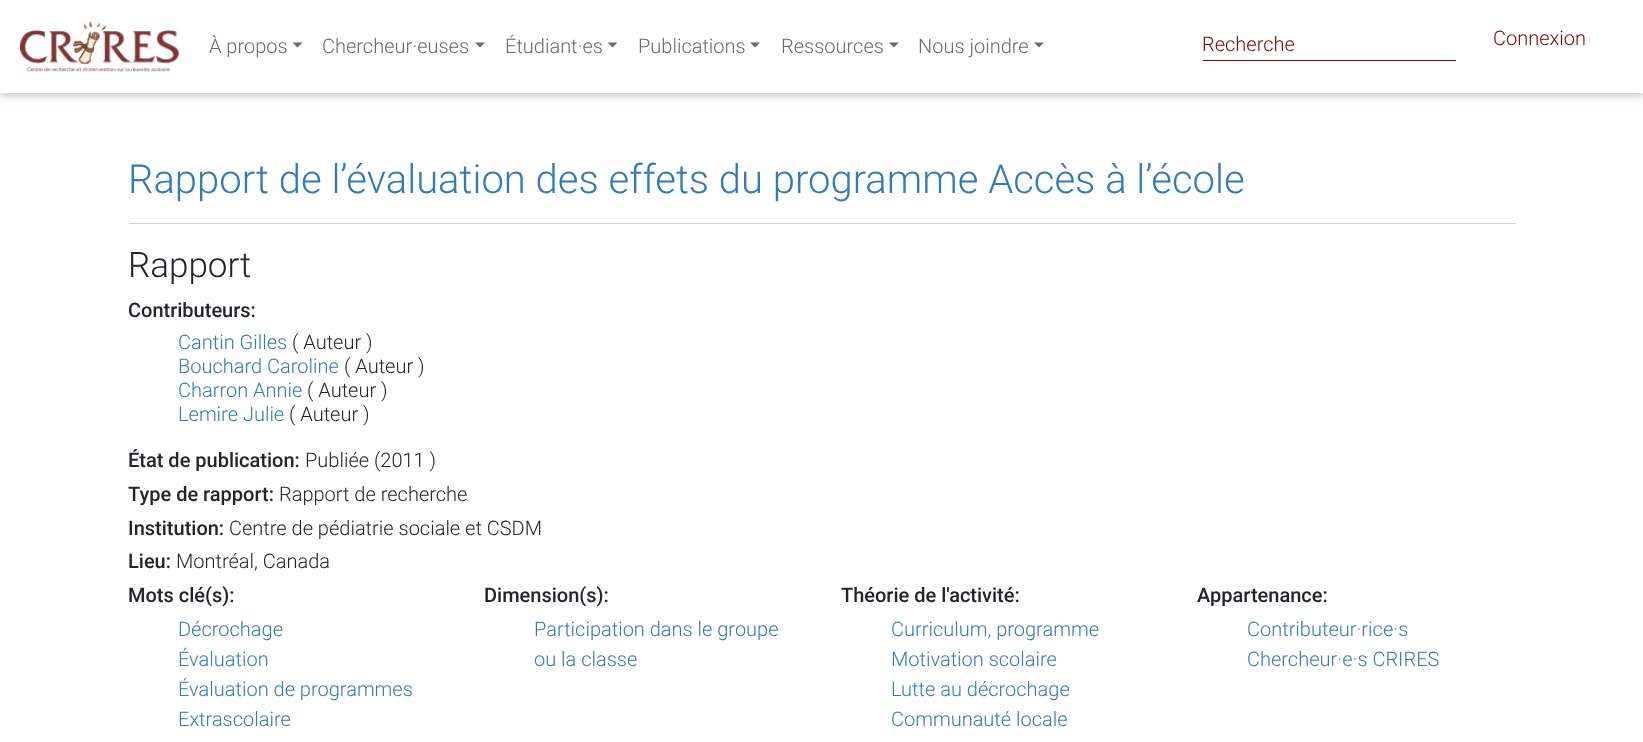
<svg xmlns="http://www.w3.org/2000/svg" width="1643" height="742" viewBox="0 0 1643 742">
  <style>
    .t1 { font: 300 20px Roboto; fill: #6a6a6a; }
    .t2 { font: 300 20px Roboto; fill: #800000; }
    .t3 { font: 300 40px Roboto; fill: #337ab7; }
    .t4 { font: 300 35px Roboto; fill: #212529; }
    .t5 { font: 500 20px Roboto; fill: #212529; }
    .t6 { font: 300 20px Roboto; fill: #337ab7; }
    .t7 { font: 300 20px Roboto; fill: #212529; }
  </style>
  <rect width="100%" height="100%" fill="#fff"/>
  <rect x="0" y="3" width="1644" height="92" fill="#0000001f" filter="blur(6px)"/>
  <rect x="0" y="3" width="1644" height="92" fill="#00000029" filter="blur(3px)"/>
  <rect x="0" y="0" width="1643" height="93" fill="#fff"/>
  <image x="20" y="21" width="159" height="51" href="images/1.png"/>
  <text x="209" y="53" class="t1">À propos</text>
  <path d="M292.5 42.5H302.5L297.5 47.5Z" fill="#6a6a6a"/>
  <text x="322" y="53" class="t1">Chercheur·euses</text>
  <path d="M475 42.5H485L480 47.5Z" fill="#6a6a6a"/>
  <text x="505" y="53" class="t1">Étudiant·es</text>
  <path d="M607.5 42.5H617.5L612.5 47.5Z" fill="#6a6a6a"/>
  <text x="638" y="53" class="t1">Publications</text>
  <path d="M750 42.5H760L755 47.5Z" fill="#6a6a6a"/>
  <text x="781" y="53" class="t1">Ressources</text>
  <path d="M889 42.5H899L894 47.5Z" fill="#6a6a6a"/>
  <text x="918" y="53" class="t1">Nous joindre</text>
  <path d="M1034 42.5H1044L1039 47.5Z" fill="#6a6a6a"/>
  <rect x="1203" y="60" width="253" height="1" fill="#800000"/>
  <text x="1202" y="51" class="t2">Recherche</text>
  <text x="1493" y="45" class="t2">Connexion</text>
  <text x="128" y="193" class="t3">Rapport de l’évaluation des effets du programme Accès à l’école</text>
  <rect x="129" y="223" width="1387" height="1" fill="#d3d3d3"/>
  <text x="128" y="277" class="t4">Rapport</text>
  <text x="128" y="317" class="t5">Contributeurs:</text>
  <text x="178" y="349" class="t6">Cantin Gilles</text>
  <text x="292" y="349" class="t7">( Auteur )</text>
  <text x="178" y="373" class="t6">Bouchard Caroline</text>
  <text x="344" y="373" class="t7">( Auteur )</text>
  <text x="178" y="397" class="t6">Charron Annie</text>
  <text x="307" y="397" class="t7">( Auteur )</text>
  <text x="178" y="421" class="t6">Lemire Julie</text>
  <text x="289" y="421" class="t7">( Auteur )</text>
  <text x="128" y="467" class="t5">État de publication:</text>
  <text x="305" y="467" class="t7">Publiée (2011 )</text>
  <text x="128" y="501" class="t5">Type de rapport:</text>
  <text x="279" y="501" class="t7">Rapport de recherche</text>
  <text x="128" y="535" class="t5">Institution:</text>
  <text x="229" y="535" class="t7">Centre de pédiatrie sociale et CSDM</text>
  <text x="128" y="568" class="t5">Lieu:</text>
  <text x="176" y="568" class="t7">Montréal, Canada</text>
  <text x="128" y="602" class="t5">Mots clé(s):</text>
  <text x="178" y="636" class="t6">Décrochage</text>
  <text x="178" y="666" class="t6">Évaluation</text>
  <text x="178" y="696" class="t6">Évaluation de programmes</text>
  <text x="178" y="726" class="t6">Extrascolaire</text>
  <text x="484" y="602" class="t5">Dimension(s):</text>
  <text x="534" y="636" class="t6">Participation dans le groupe</text>
  <text x="534" y="666" class="t6">ou la classe</text>
  <text x="841" y="602" class="t5">Théorie de l'activité:</text>
  <text x="891" y="636" class="t6">Curriculum, programme</text>
  <text x="891" y="666" class="t6">Motivation scolaire</text>
  <text x="891" y="696" class="t6">Lutte au décrochage</text>
  <text x="891" y="726" class="t6">Communauté locale</text>
  <text x="1197" y="602" class="t5">Appartenance:</text>
  <text x="1247" y="636" class="t6">Contributeur·rice·s</text>
  <text x="1247" y="666" class="t6">Chercheur·e·s CRIRES</text>
</svg>
